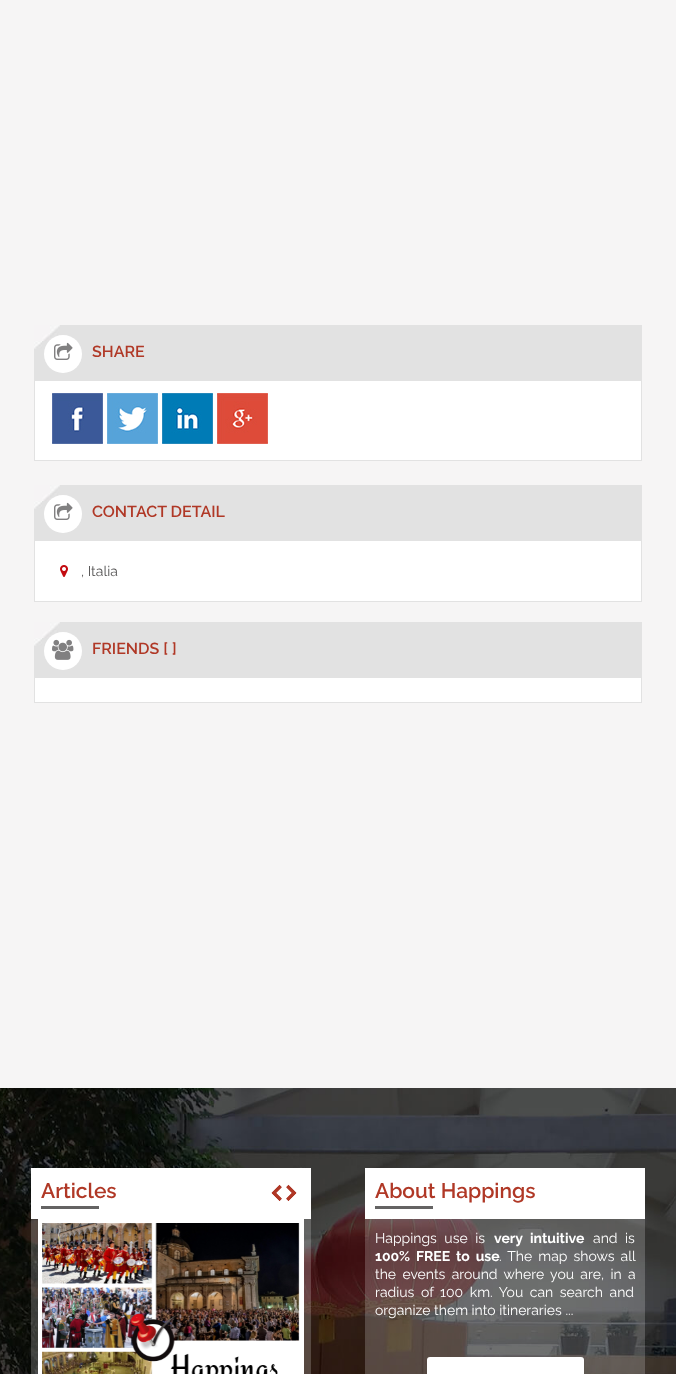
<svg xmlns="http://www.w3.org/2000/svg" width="676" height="1374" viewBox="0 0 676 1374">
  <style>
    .t1 { font: 600 16px Raleway; fill: #b03826; }
    .t2 { font: 14px Raleway; fill: #555454; }
    .t3 { font: 600 21px Raleway; fill: #b03826; }
    .t4 { font: 14px Raleway; fill: #fff; }
    .t5 { font: bold 14px Raleway; fill: #fff; }
  </style>
  <rect width="100%" height="100%" fill="#f6f5f5"/>
  <rect x="34" y="325" width="608" height="55" fill="#e2e2e2"/>
  <image x="34" y="325" width="26" height="24" href="images/1.png"/>
  <circle cx="63" cy="354" r="19" fill="#fff"/>
  <image x="54" y="342" width="19" height="18" href="images/2.png"/>
  <text x="92" y="357" class="t1">SHARE</text>
  <rect x="34.5" y="380.5" width="607" height="80" fill="#fff" stroke="#e2e2e2"/>
  <image x="52" y="393" width="51" height="51" href="images/3.png"/>
  <image x="107" y="393" width="51" height="51" href="images/4.png"/>
  <image x="162" y="393" width="51" height="51" href="images/5.png"/>
  <image x="217" y="393" width="51" height="51" href="images/6.png"/>
  <rect x="34" y="485" width="608" height="55" fill="#e2e2e2"/>
  <image x="34" y="485" width="26" height="24" href="images/1.png"/>
  <circle cx="63" cy="514" r="19" fill="#fff"/>
  <image x="54" y="502" width="19" height="18" href="images/2.png"/>
  <text x="92" y="517" class="t1">CONTACT DETAIL</text>
  <rect x="34.5" y="540.5" width="607" height="61" fill="#fff" stroke="#e2e2e2"/>
  <image x="60" y="565" width="8" height="12" href="images/7.png"/>
  <text x="81" y="576" class="t2">, Italia</text>
  <rect x="34" y="622" width="608" height="55" fill="#e2e2e2"/>
  <image x="34" y="622" width="26" height="24" href="images/1.png"/>
  <circle cx="63" cy="651" r="19" fill="#fff"/>
  <image x="52" y="639" width="22" height="21" href="images/8.png"/>
  <text x="92" y="654" class="t1">FRIENDS [ ]</text>
  <rect x="34.5" y="677.5" width="607" height="25" fill="#fff" stroke="#e2e2e2"/>
  <image x="0" y="1088" width="676" height="286" href="images/9.png"/>
  <rect x="31" y="1219" width="280" height="155" fill="#ffffff33"/>
  <rect x="31" y="1168" width="280" height="51" fill="#fff"/>
  <text x="41" y="1198" class="t3">Articles</text>
  <rect x="41" y="1206" width="58" height="3" fill="#646363"/>
  <image x="271" y="1184" width="11" height="17" href="images/10.png"/>
  <image x="286" y="1184" width="11" height="17" href="images/11.png"/>
  <image x="38" y="1219" width="266" height="155" href="images/12.png"/>
  <rect x="365" y="1219" width="280" height="155" fill="#ffffff33"/>
  <rect x="365" y="1168" width="280" height="51" fill="#fff"/>
  <text x="375" y="1198" class="t3">About Happings</text>
  <rect x="375" y="1206" width="58" height="3" fill="#646363"/>
  <text x="375" y="1243" word-spacing="4" class="t4">Happings use is</text>
  <text x="494" y="1243" word-spacing="4" class="t5">very intuitive</text>
  <text x="593" y="1243" word-spacing="4" class="t4">and is</text>
  <text x="375" y="1261" word-spacing="2.5" class="t5">100% FREE to use</text>
  <text x="499" y="1261" word-spacing="2.5" class="t4">. The map shows all</text>
  <text x="375" y="1279" word-spacing="2.75" class="t4">the events around where you are, in a</text>
  <text x="375" y="1297" word-spacing="3" class="t4">radius of 100 km. You can search and</text>
  <text x="375" y="1315" class="t4">organize them into itineraries ...</text>
  <rect x="427" y="1357" width="157" height="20" rx="3" fill="#fff"/>
</svg>
